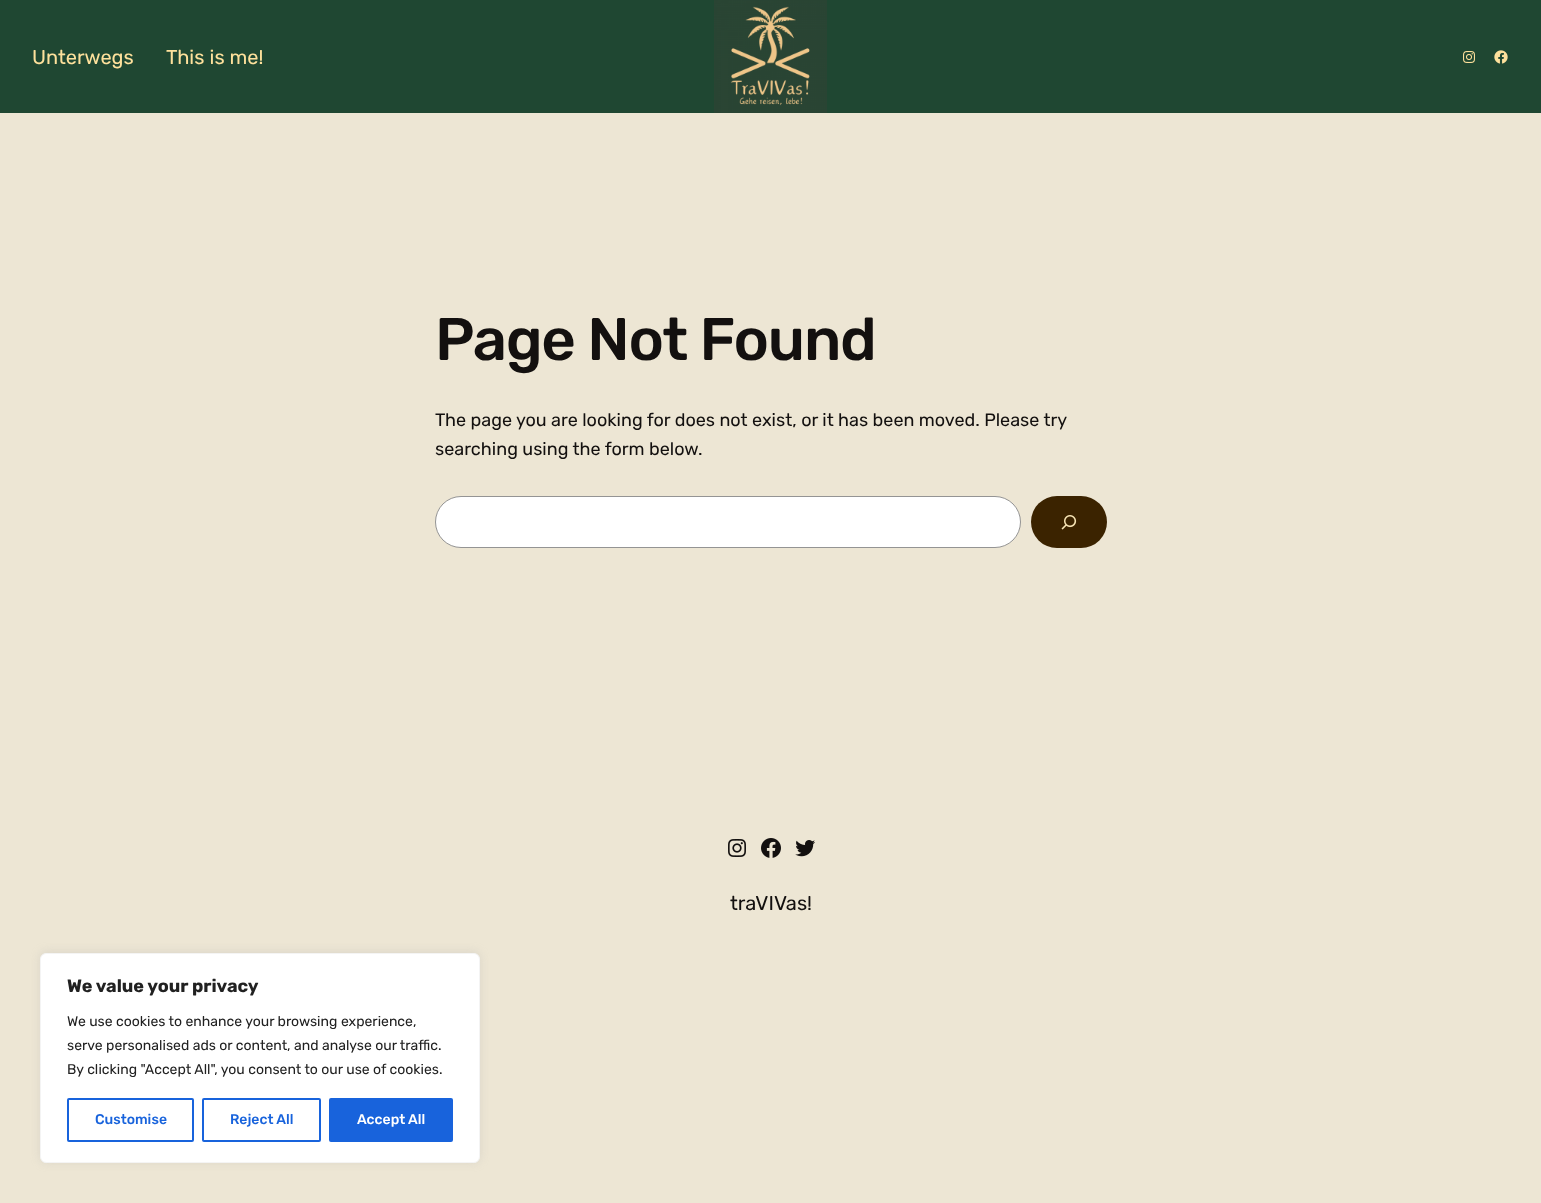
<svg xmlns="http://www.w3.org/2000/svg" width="1541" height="1203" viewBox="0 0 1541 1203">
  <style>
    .t1 { font: 20px Rubik; fill: #fee19c; }
    .t2 { font: 500 60px Rubik; letter-spacing: -1.25px; fill: #13100f; }
    .t3 { font: 18px Rubik; fill: #13100f; }
    .t4 { font: 20px Rubik; fill: #13100f; }
    .t5 { font: bold 18px Rubik; fill: #212121; }
    .t6 { font: 14px Rubik; fill: #212121; }
    .t7 { font: 500 14px Rubik; fill: #1863dc; }
    .t8 { font: 500 14px Rubik; fill: #fff; }
  </style>
  <rect width="100%" height="100%" fill="#ede6d4"/>
  <rect x="0" y="0" width="1541" height="113" fill="#1f4732"/>
  <text x="32" y="64" class="t1">Unterwegs</text>
  <text x="166" y="64" class="t1">This is me!</text>
  <image x="714" y="0" width="113" height="113" href="images/1.png"/>
  <image x="1463" y="51" width="12" height="12" href="images/2.png"/>
  <image x="1494" y="50" width="14" height="14" href="images/3.png"/>
  <text x="435" y="360" class="t2">Page Not Found</text>
  <text x="435" y="426" class="t3">The page you are looking for does not exist, or it has been moved. Please try</text>
  <text x="435" y="455" class="t3">searching using the form below.</text>
  <rect x="435.5" y="496.5" width="585" height="51" rx="25.5" fill="#fff" stroke="#949494"/>
  <rect x="1031" y="496" width="76" height="52" rx="26" fill="#3b2300"/>
  <image x="1061" y="515" width="16" height="15" href="images/4.png"/>
  <image x="728" y="839" width="18" height="18" href="images/5.png"/>
  <image x="761" y="838" width="20" height="20" href="images/6.png"/>
  <image x="795" y="840" width="20" height="17" href="images/7.png"/>
  <text x="730" y="910" class="t4">traVIVas!</text>
  <rect x="40" y="952" width="440" height="210" rx="6" fill="#acabab4d" filter="blur(5px)"/>
  <rect x="40.5" y="953.5" width="439" height="209" rx="5.5" fill="#fff" stroke="#f4f4f4"/>
  <text x="67" y="992" class="t5">We value your privacy</text>
  <text x="67" y="1026" class="t6">We use cookies to enhance your browsing experience,</text>
  <text x="67" y="1050" class="t6">serve personalised ads or content, and analyse our traffic.</text>
  <text x="67" y="1074" class="t6">By clicking "Accept All", you consent to our use of cookies.</text>
  <rect x="68" y="1099" width="125" height="42" rx="1" fill="none" stroke="#1863dc" stroke-width="2"/>
  <text x="95" y="1124" class="t7">Customise</text>
  <rect x="203" y="1099" width="117" height="42" rx="1" fill="none" stroke="#1863dc" stroke-width="2"/>
  <text x="230" y="1124" class="t7">Reject All</text>
  <rect x="330" y="1099" width="122" height="42" rx="1" fill="#1863dc" stroke="#1863dc" stroke-width="2"/>
  <text x="357" y="1124" class="t8">Accept All</text>
</svg>
